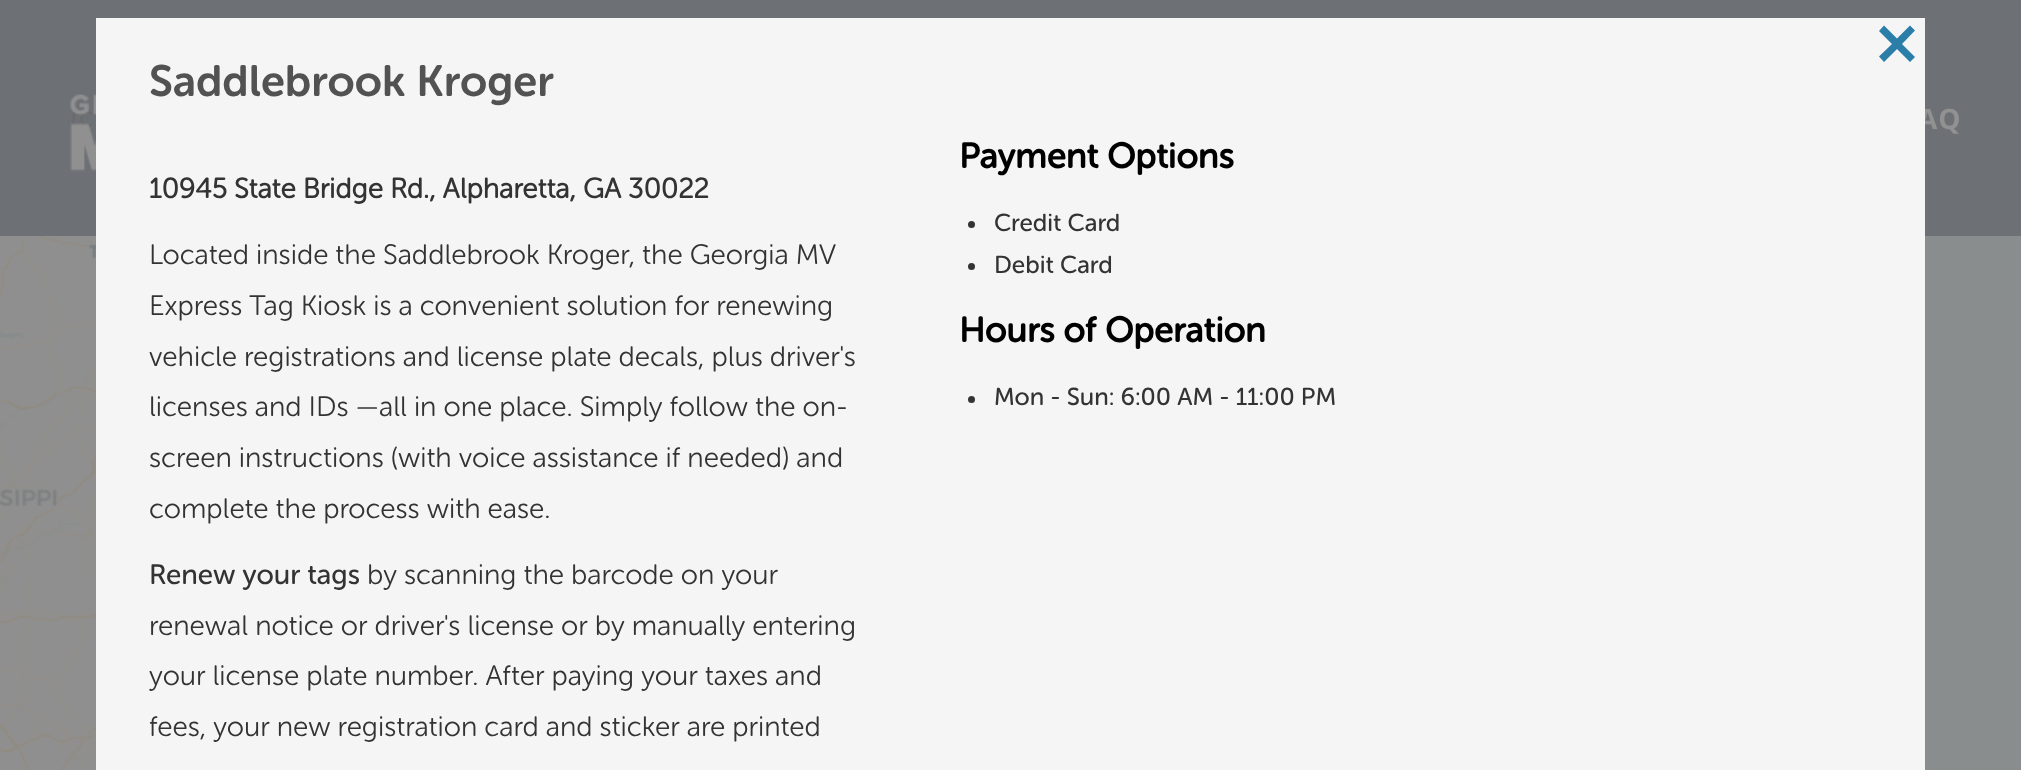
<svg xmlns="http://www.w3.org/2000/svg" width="2021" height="770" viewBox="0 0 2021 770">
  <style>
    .t1 { font: bold 28px Open Sans; letter-spacing: 1px; fill: #919191; }
    .t2 { font: 600 43.75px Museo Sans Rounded; fill: #525252; }
    .t3 { font: bold 28px Museo Sans Rounded; fill: #333; }
    .t4 { font: 300 28px Museo Sans Rounded; fill: #333; }
    .t5 { font: 28px Museo Sans Rounded; fill: #333; }
    .t6 { font: bold 35px 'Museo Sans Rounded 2'; fill: #000; }
    .t7 { font: 24.5px Museo Sans Rounded; fill: #333; }
  </style>
  <rect width="100%" height="100%" fill="#fff"/>
  <rect x="0" y="0" width="2021" height="236" fill="#6d7176"/>
  <text x="1918" y="129" class="t1">AQ</text>
  <rect x="96" y="18" width="1829" height="752" fill="#f5f5f5"/>
  <image x="1891" y="37" width="17" height="18" href="images/1.png"/>
  <path d="M1915 30.5L1902 44L1915 57L1910 62L1897 49L1884 62L1879 56.5L1892 44L1879 31L1884 25.5L1897 38.5L1910 25.5Z" fill="#2b7ea8"/>
  <text x="149" y="96" class="t2">Saddlebrook Kroger</text>
  <text x="149" y="198" class="t3">10945 State Bridge Rd., Alpharetta, GA 30022</text>
  <text x="149" y="264" class="t4">Located inside the Saddlebrook Kroger, the Georgia MV</text>
  <text x="149" y="315" class="t4">Express Tag Kiosk is a convenient solution for renewing</text>
  <text x="149" y="366" class="t4">vehicle registrations and license plate decals, plus driver's</text>
  <text x="149" y="416" class="t4">licenses and IDs —all in one place. Simply follow the on-</text>
  <text x="149" y="467" class="t4">screen instructions (with voice assistance if needed) and</text>
  <text x="149" y="518" class="t4">complete the process with ease.</text>
  <text x="149" y="584" class="t5">Renew your tags</text>
  <text x="367" y="584" class="t4">by scanning the barcode on your</text>
  <text x="149" y="635" class="t4">renewal notice or driver's license or by manually entering</text>
  <text x="149" y="685" class="t4">your license plate number. After paying your taxes and</text>
  <text x="149" y="736" class="t4">fees, your new registration card and sticker are printed</text>
  <text x="959" y="168" class="t6">Payment Options</text>
  <circle cx="971.5" cy="224.5" r="3.5" fill="#333"/>
  <text x="994" y="231" class="t7">Credit Card</text>
  <circle cx="971.5" cy="266.5" r="3.5" fill="#333"/>
  <text x="994" y="273" class="t7">Debit Card</text>
  <text x="959" y="342" class="t6">Hours of Operation</text>
  <circle cx="971.5" cy="399.5" r="3.5" fill="#333"/>
  <text x="994" y="405" class="t7">Mon - Sun: 6:00 AM - 11:00 PM</text>
  <image x="68" y="94" width="28" height="78" href="images/2.png"/>
  <image x="0" y="236" width="96" height="6" href="images/3.png"/>
  <image x="1925" y="236" width="96" height="6" href="images/4.png"/>
  <image x="0" y="242" width="96" height="448" href="images/5.png"/>
  <image x="1925" y="242" width="96" height="448" href="images/6.png"/>
  <image x="0" y="689" width="96" height="81" href="images/7.png"/>
  <rect x="1925" y="690" width="96" height="80" fill="#8a8d8e"/>
</svg>
